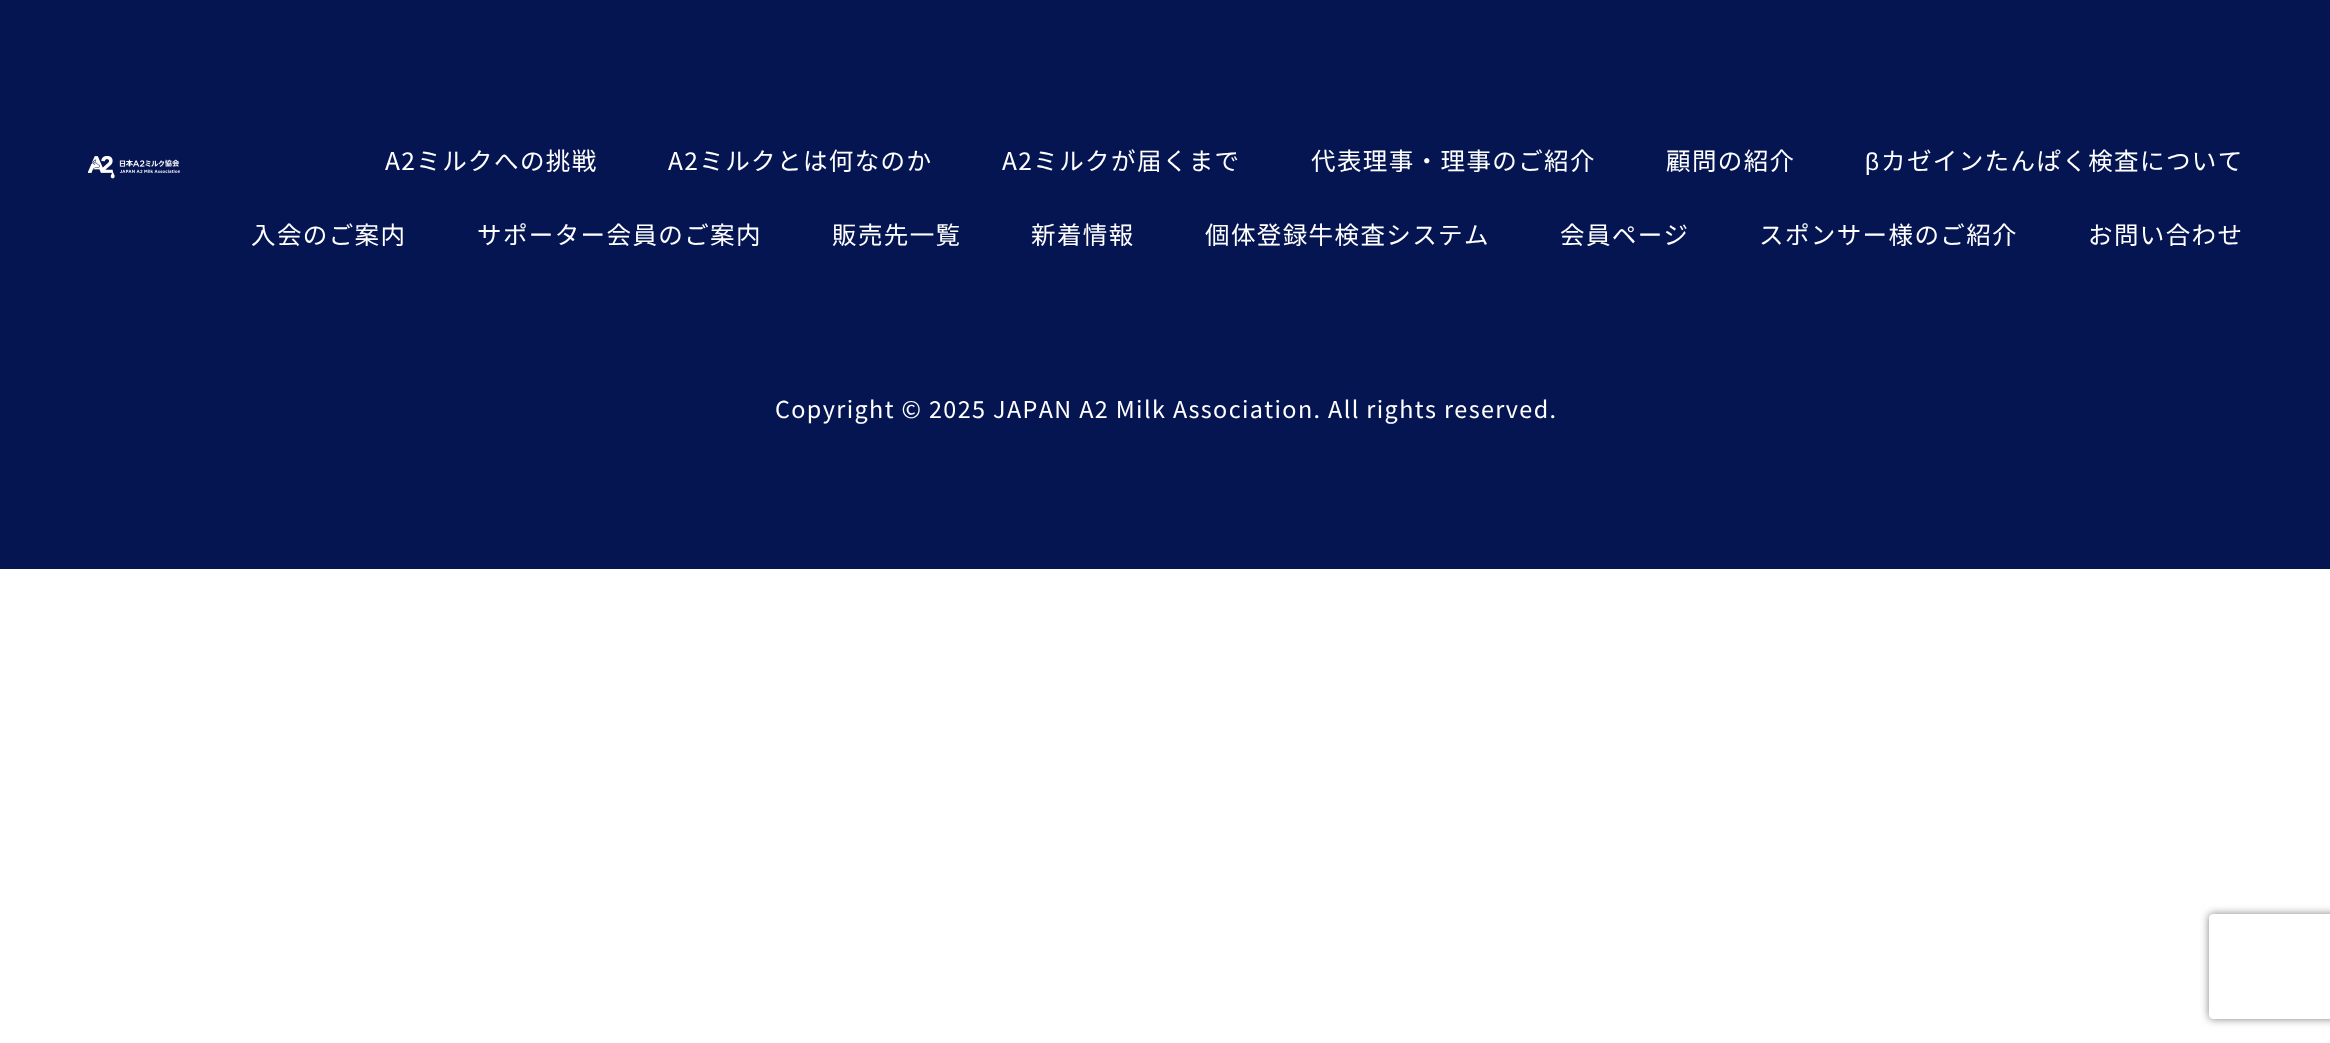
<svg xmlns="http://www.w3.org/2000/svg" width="2330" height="1043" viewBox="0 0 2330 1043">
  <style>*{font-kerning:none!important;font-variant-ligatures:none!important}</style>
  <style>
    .t1 { font: 24.5px Noto Sans JP; letter-spacing: 1.4px; fill: #fff; }
    .t2 { font: 24.5px Liberation Sans; letter-spacing: 1.4px; fill: #fff; }
    .t3 { font: 23.35px Noto Sans JP; letter-spacing: 1.4px; fill: #fff; }
  </style>
  <defs>
    <clipPath id="clip1"><path d="M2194 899H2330V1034H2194ZM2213 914H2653C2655 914 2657 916 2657 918V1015C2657 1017 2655 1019 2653 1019H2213C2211 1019 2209 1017 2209 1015V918C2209 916 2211 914 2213 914Z" clip-rule="evenodd"/></clipPath>
  </defs>
  <rect width="100%" height="100%" fill="#fff"/>
  <rect x="0" y="0" width="2330" height="569" fill="#051551"/>
  <image x="88" y="156" width="92" height="23" href="images/1.png"/>
  <text x="385" y="170" class="t1">A2ミルクへの挑戦</text>
  <text x="668" y="170" class="t1">A2ミルクとは何なのか</text>
  <text x="1002" y="170" class="t1">A2ミルクが届くまで</text>
  <text x="1311" y="170" class="t1">代表理事・理事のご紹介</text>
  <text x="1666" y="170" class="t1">顧問の紹介</text>
  <text x="1865" y="170" class="t2">β</text>
  <text x="1881" y="170" class="t1">カゼインたんぱく検査について</text>
  <text x="251" y="244" class="t1">入会のご案内</text>
  <text x="477" y="244" class="t1">サポーター会員のご案内</text>
  <text x="832" y="244" class="t1">販売先一覧</text>
  <text x="1031" y="244" class="t1">新着情報</text>
  <text x="1205" y="244" class="t1">個体登録牛検査システム</text>
  <text x="1560" y="244" class="t1">会員ページ</text>
  <text x="1759" y="244" class="t1">スポンサー様のご紹介</text>
  <text x="2088" y="244" class="t1">お問い合わせ</text>
  <text x="775" y="418" class="t3">Copyright © 2025 JAPAN A2 Milk Association. All rights reserved.</text>
  <g clip-path="url(#clip1)">
    <rect x="2209" y="914" width="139" height="105" rx="4" fill="#808080" filter="blur(4.5px)"/>
  </g>
</svg>
